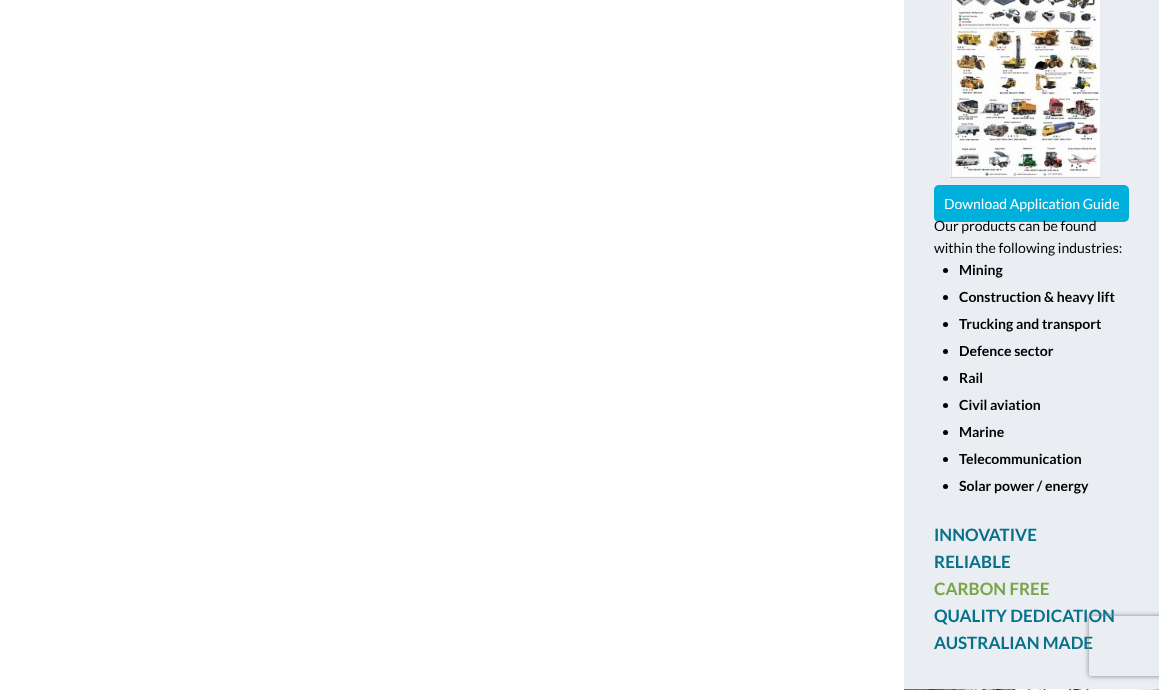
<svg xmlns="http://www.w3.org/2000/svg" width="1159" height="690" viewBox="0 0 1159 690">
  <style>
    .t1 { font: 14px Lato; fill: #fff; }
    .t2 { font: 14px Lato; fill: #000; }
    .t3 { font: bold 14px Lato; fill: #000; }
    .t4 { font: bold 17px Lato; fill: #07718b; }
    .t5 { font: bold 17px Lato; fill: #78a548; }
  </style>
  <defs>
    <clipPath id="clip1"><path d="M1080 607H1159V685H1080ZM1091 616H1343C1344 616 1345 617 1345 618V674C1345 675 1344 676 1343 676H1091C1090 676 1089 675 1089 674V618C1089 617 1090 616 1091 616Z" clip-rule="evenodd"/></clipPath>
  </defs>
  <rect width="100%" height="100%" fill="#fff"/>
  <rect x="904" y="0" width="255" height="689" fill="#eaedf1"/>
  <image x="950" y="0" width="150" height="178" href="images/1.png"/>
  <rect x="934" y="185" width="195" height="37" rx="5" fill="#00b0dc"/>
  <text x="944" y="209" class="t1">Download Application Guide</text>
  <text x="934" y="231" class="t2">Our products can be found</text>
  <text x="934" y="253" class="t2">within the following industries:</text>
  <circle cx="945.5" cy="270.5" r="2.5" fill="#000"/>
  <text x="959" y="275" class="t3">Mining</text>
  <circle cx="945.5" cy="297.5" r="2.5" fill="#000"/>
  <text x="959" y="302" class="t3">Construction &amp; heavy lift</text>
  <circle cx="945.5" cy="324.5" r="2.5" fill="#000"/>
  <text x="959" y="329" class="t3">Trucking and transport</text>
  <circle cx="945.5" cy="351.5" r="2.5" fill="#000"/>
  <text x="959" y="356" class="t3">Defence sector</text>
  <circle cx="945.5" cy="378.5" r="2.5" fill="#000"/>
  <text x="959" y="383" class="t3">Rail</text>
  <circle cx="945.5" cy="405.5" r="2.5" fill="#000"/>
  <text x="959" y="410" class="t3">Civil aviation</text>
  <circle cx="945.5" cy="432.5" r="2.5" fill="#000"/>
  <text x="959" y="437" class="t3">Marine</text>
  <circle cx="945.5" cy="459.5" r="2.5" fill="#000"/>
  <text x="959" y="464" class="t3">Telecommunication</text>
  <circle cx="945.5" cy="486.5" r="2.5" fill="#000"/>
  <text x="959" y="491" class="t3">Solar power / energy</text>
  <text x="934" y="541" class="t4">INNOVATIVE</text>
  <text x="934" y="568" class="t4">RELIABLE</text>
  <text x="934" y="595" class="t5">CARBON FREE</text>
  <text x="934" y="622" class="t4">QUALITY DEDICATION</text>
  <text x="934" y="649" class="t4">AUSTRALIAN MADE</text>
  <image x="904" y="689" width="255" height="1" href="images/2.png"/>
  <g clip-path="url(#clip1)">
    <rect x="1089" y="616" width="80" height="60" rx="2" fill="#808080" filter="blur(2.5px)"/>
  </g>
</svg>
